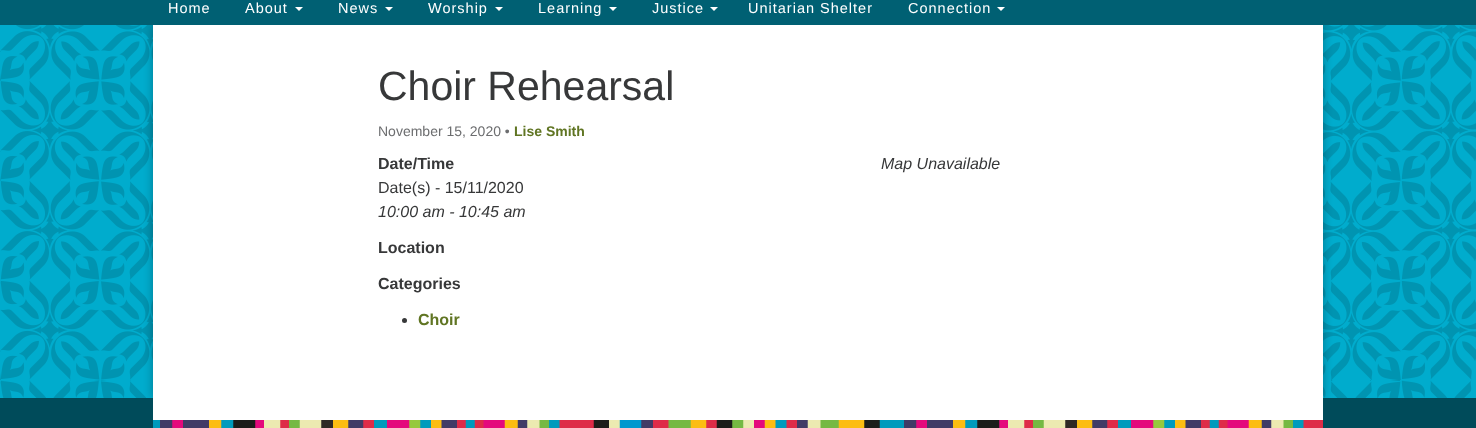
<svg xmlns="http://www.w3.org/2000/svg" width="1476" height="428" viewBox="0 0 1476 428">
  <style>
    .t1 { font: 14.5px Liberation Sans; letter-spacing: 1px; fill: #fff; }
    .t2 { font: 41px Liberation Sans; fill: #373839; }
    .t3 { font: 14px Liberation Sans; fill: #6c6d6f; }
    .t4 { font: bold 14px Liberation Sans; fill: #607523; }
    .t5 { font: bold 16px Liberation Sans; fill: #373839; }
    .t6 { font: 16px Liberation Sans; fill: #373839; }
    .t7 { font: italic 16px Liberation Sans; fill: #373839; }
    .t8 { font: bold 16px Liberation Sans; fill: #607523; }
  </style>
  <rect width="100%" height="100%" fill="#fff"/>
  <image x="0" y="25" width="1476" height="373" href="images/1.png"/>
  <rect x="153" y="25" width="1170" height="373" fill="#0000004d" filter="blur(5px)"/>
  <rect x="0" y="0" width="1476" height="25" fill="#006073"/>
  <text x="168" y="13" class="t1">Home</text>
  <text x="245" y="13" class="t1">About</text>
  <path d="M295 7H303L299 11Z" fill="#fff"/>
  <text x="338" y="13" class="t1">News</text>
  <path d="M385 7H393L389 11Z" fill="#fff"/>
  <text x="428" y="13" class="t1">Worship</text>
  <path d="M495 7H503L499 11Z" fill="#fff"/>
  <text x="538" y="13" class="t1">Learning</text>
  <path d="M609 7H617L613 11Z" fill="#fff"/>
  <text x="652" y="13" class="t1">Justice</text>
  <path d="M710 7H718L714 11Z" fill="#fff"/>
  <text x="748" y="13" class="t1">Unitarian Shelter</text>
  <text x="908" y="13" class="t1">Connection</text>
  <path d="M997 7H1005L1001 11Z" fill="#fff"/>
  <rect x="153" y="25" width="1170" height="373" fill="#fff"/>
  <text x="378" y="100" class="t2">Choir Rehearsal</text>
  <text x="378" y="136" class="t3">November 15, 2020 •</text>
  <text x="514" y="136" class="t4">Lise Smith</text>
  <text x="378" y="169" class="t5">Date/Time</text>
  <text x="378" y="193" class="t6">Date(s) - 15/11/2020</text>
  <text x="378" y="217" class="t7">10:00 am - 10:45 am</text>
  <text x="881" y="169" class="t7">Map Unavailable</text>
  <text x="378" y="253" class="t5">Location</text>
  <text x="378" y="289" class="t5">Categories</text>
  <circle cx="404.5" cy="320.5" r="2.5" fill="#373839"/>
  <text x="418" y="325" class="t8">Choir</text>
  <rect x="0" y="398" width="1476" height="30" fill="#004b5a"/>
  <rect x="153" y="398" width="1170" height="22" fill="#fff"/>
  <image x="153" y="420" width="1170" height="8" href="images/2.png"/>
</svg>
